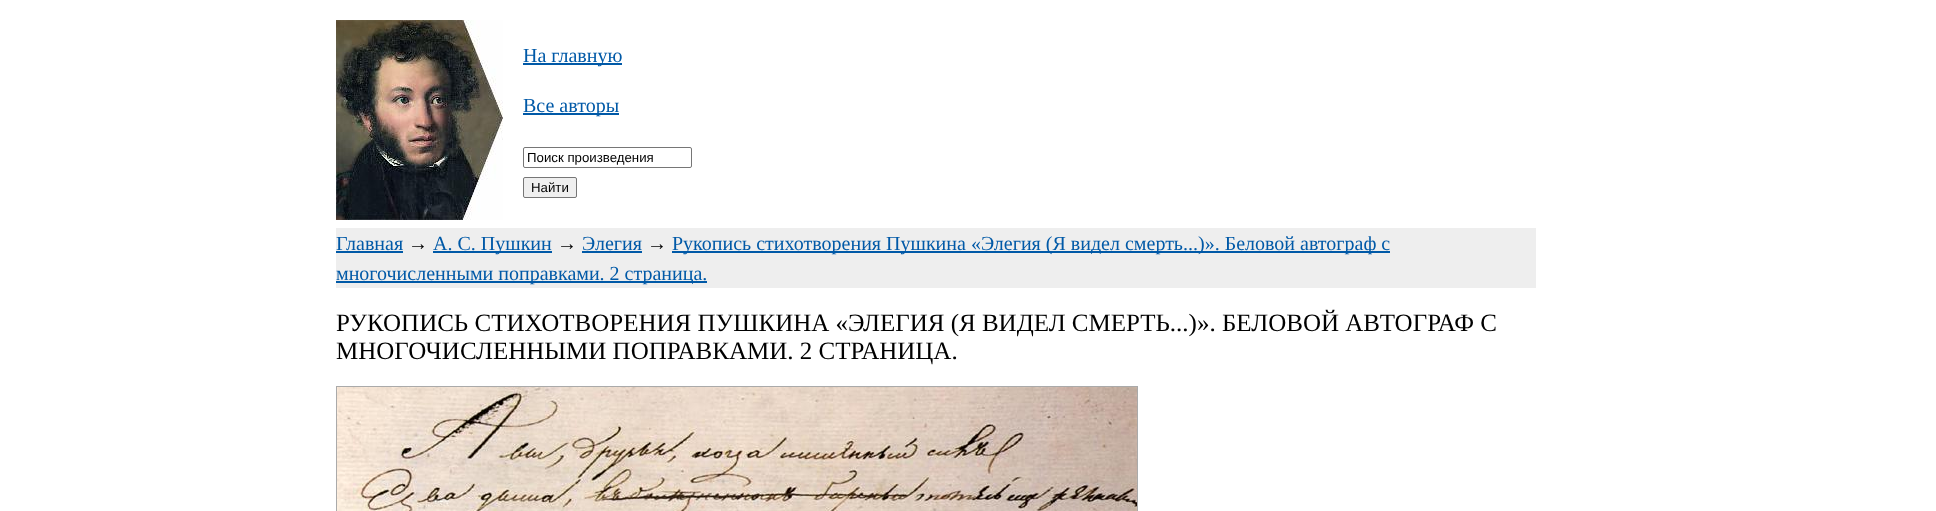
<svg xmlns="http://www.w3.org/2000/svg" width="1936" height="511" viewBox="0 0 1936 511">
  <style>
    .t1 { font: 20px Liberation Serif; fill: #0059a7; }
    .t2 { font: 13.25px Liberation Sans; fill: #000; }
    .t3 { font: 20px Liberation Serif; fill: #000; }
    .t4 { font: 25px Liberation Serif; fill: #000; }
  </style>
  <rect width="100%" height="100%" fill="#fff"/>
  <image x="336" y="20" width="167" height="200" href="images/1.png"/>
  <rect x="523" y="63" width="99" height="2" fill="#0059a7"/>
  <text x="523" y="62" class="t1">На главную</text>
  <rect x="523" y="113" width="96" height="2" fill="#0059a7"/>
  <text x="523" y="112" class="t1">Все авторы</text>
  <rect x="523.5" y="147.5" width="168" height="20" rx="1.5" fill="none" stroke="#767676"/>
  <text x="527" y="162" class="t2">Поиск произведения</text>
  <rect x="523.5" y="177.5" width="53" height="20" rx="1.5" fill="#efefef" stroke="#767676"/>
  <text x="531" y="192" class="t2">Найти</text>
  <rect x="336" y="228" width="1200" height="60" fill="#eee"/>
  <text x="336" y="250" class="t1">Главная</text>
  <rect x="336" y="251" width="67" height="2" fill="#0059a7"/>
  <text x="408" y="250" class="t3">→</text>
  <rect x="433" y="251" width="119" height="2" fill="#0059a7"/>
  <text x="433" y="250" class="t1">А. С. Пушкин</text>
  <text x="557" y="250" class="t3">→</text>
  <text x="582" y="250" class="t1">Элегия</text>
  <rect x="582" y="251" width="60" height="2" fill="#0059a7"/>
  <text x="647" y="250" class="t3">→</text>
  <rect x="672" y="251" width="718" height="2" fill="#0059a7"/>
  <text x="672" y="250" class="t1">Рукопись стихотворения Пушкина «Элегия (Я видел смерть...)». Беловой автограф с</text>
  <rect x="336" y="281" width="371" height="2" fill="#0059a7"/>
  <text x="336" y="280" class="t1">многочисленными поправками. 2 страница.</text>
  <text x="336" y="331" class="t4">РУКОПИСЬ СТИХОТВОРЕНИЯ ПУШКИНА «ЭЛЕГИЯ (Я ВИДЕЛ СМЕРТЬ...)». БЕЛОВОЙ АВТОГРАФ С</text>
  <text x="336" y="359" class="t4">МНОГОЧИСЛЕННЫМИ ПОПРАВКАМИ. 2 СТРАНИЦА.</text>
  <rect x="336.5" y="386.5" width="801" height="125" fill="none" stroke="#aaa"/>
  <image x="337" y="387" width="800" height="124" href="images/2.png"/>
</svg>
